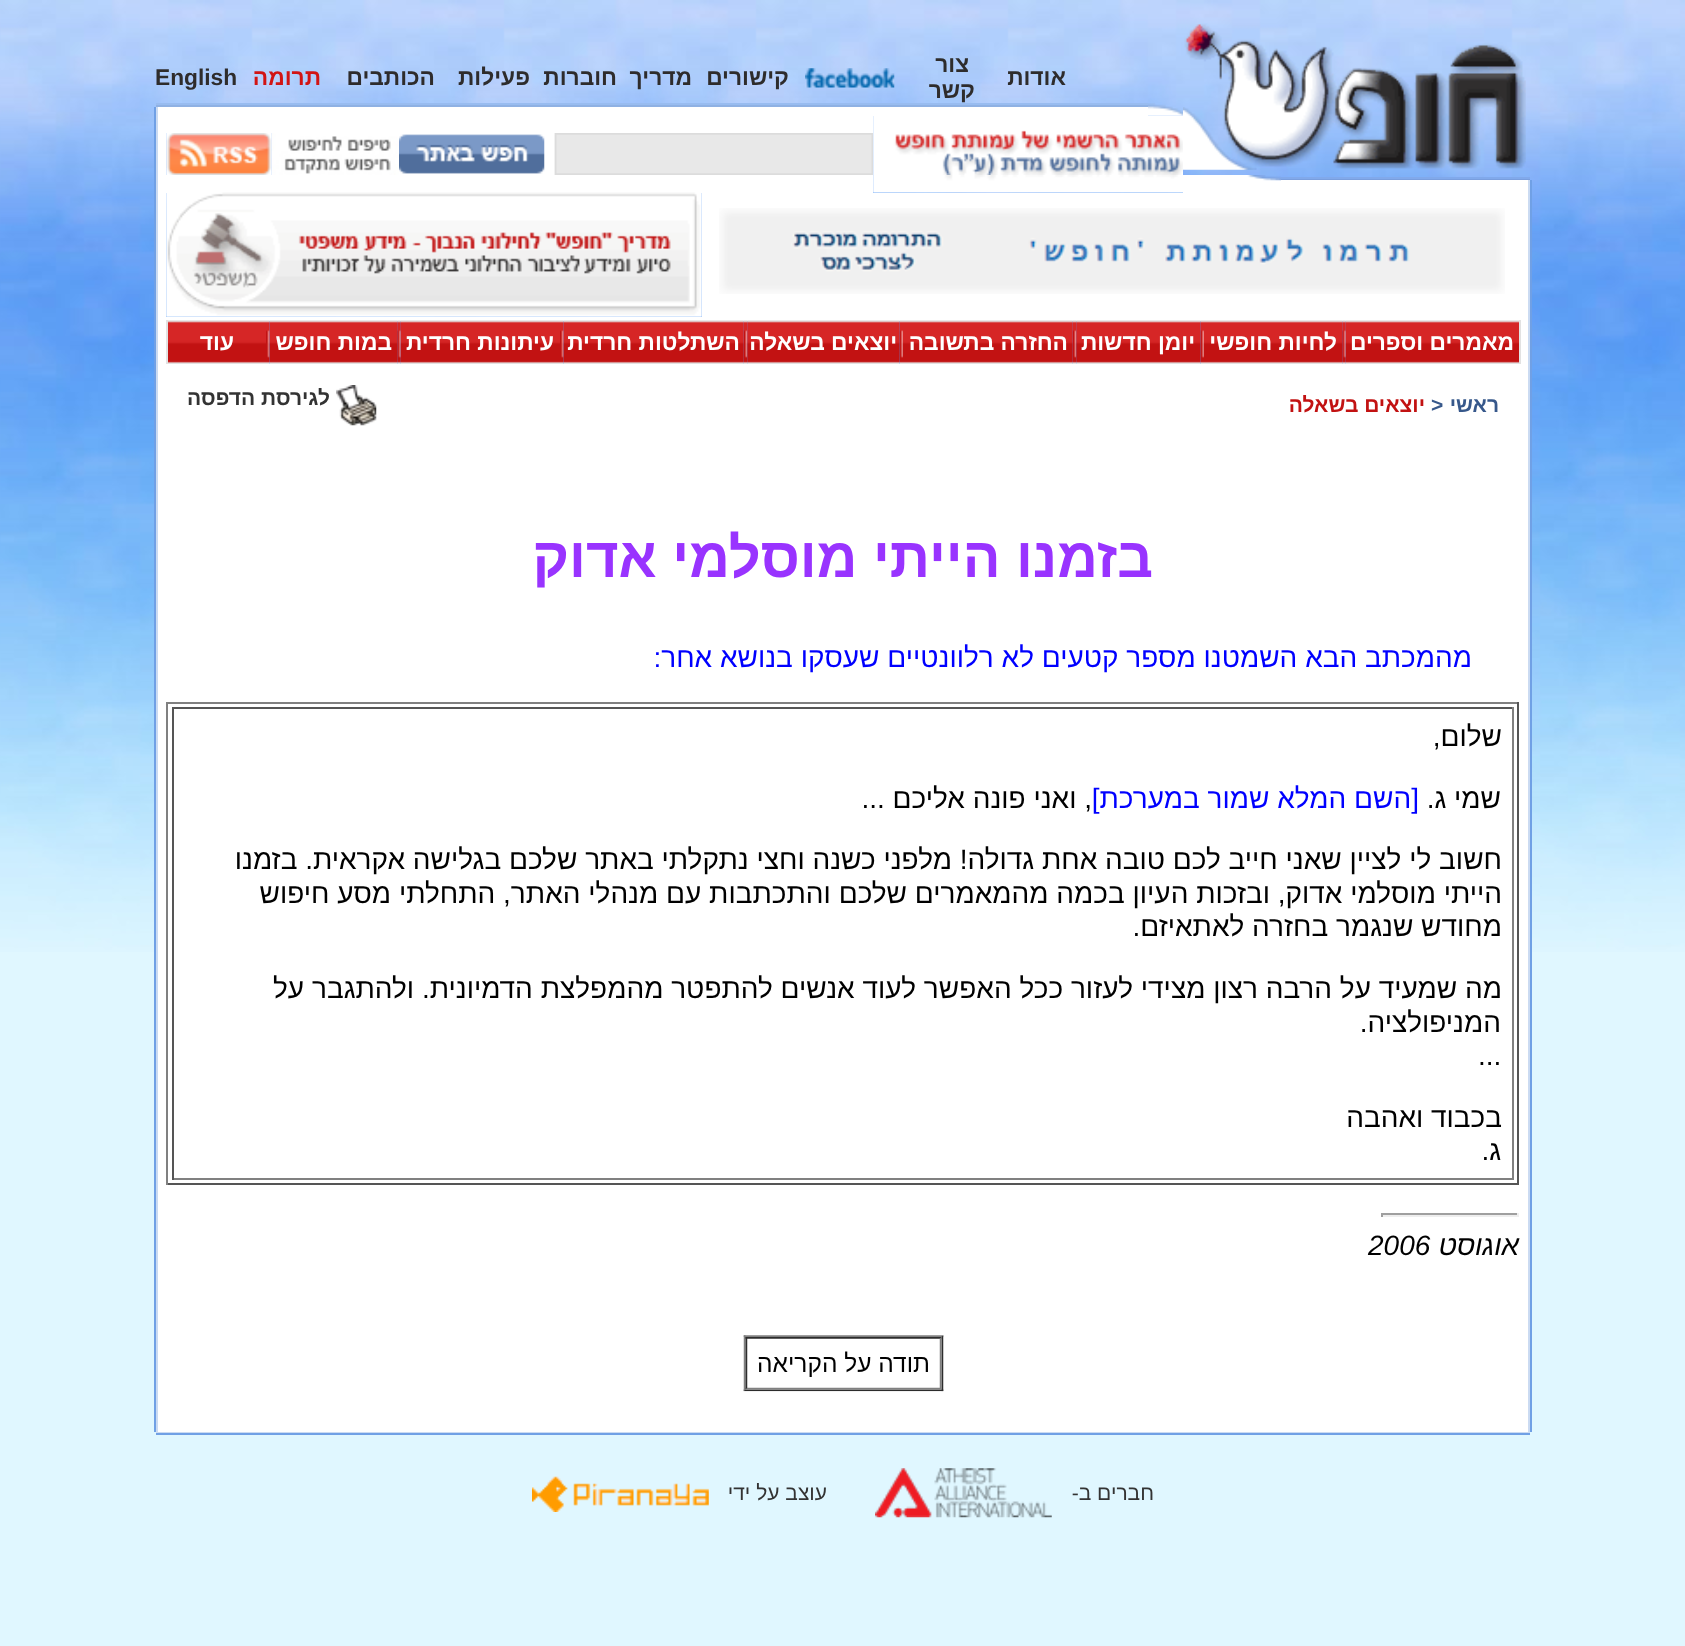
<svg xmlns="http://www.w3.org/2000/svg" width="1685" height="1646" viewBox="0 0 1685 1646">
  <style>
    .t1 { font: bold 22.75px Liberation Sans; direction: rtl; fill: #2e2c2c; }
    .t2 { font: bold 22.75px Liberation Sans; direction: rtl; fill: #d21414; }
    .t3 { font: bold 22.75px Liberation Sans; fill: #2e2c2c; }
    .t4 { font: bold 22.75px Liberation Sans; direction: rtl; fill: #fff; }
    .t5 { font: bold 21px Liberation Sans; direction: rtl; fill: #37588b; }
    .t6 { font: bold 21px Liberation Sans; fill: #37588b; }
    .t7 { font: bold 21px Liberation Sans; direction: rtl; fill: #c21212; }
    .t8 { font: bold 21px Liberation Sans; direction: rtl; fill: #333; }
    .t9 { font: bold 56px Liberation Sans; direction: rtl; fill: #93f; }
    .t10 { font: 28px Liberation Sans; direction: rtl; fill: #00f; }
    .t11 { font: 28px Liberation Sans; direction: rtl; fill: #000; }
    .t12 { font: 28px Liberation Sans; fill: #000; }
    .t13 { font: italic 28px Liberation Sans; direction: rtl; fill: #000; }
    .t14 { font: italic 28px Liberation Sans; fill: #000; }
    .t15 { font: 21px Liberation Sans; direction: rtl; fill: #333; }
  </style>
  <rect width="100%" height="100%" fill="#e0f7ff"/>
  <image x="0" y="0" width="1685" height="952" href="images/1.png"/>
  <image x="1184" y="23" width="342" height="146" href="images/2.png"/>
  <image x="1183" y="107" width="74" height="63" href="images/3.png"/>
  <text x="1066" y="85" class="t1">אודות</text>
  <text x="969" y="72" class="t1">צור</text>
  <text x="975" y="98" class="t1">קשר</text>
  <image x="805" y="68" width="90" height="20" href="images/4.png"/>
  <text x="789" y="85" class="t1">קישורים</text>
  <text x="692" y="85" class="t1">מדריך</text>
  <text x="617" y="85" class="t1">חוברות</text>
  <text x="530" y="85" class="t1">פעילות</text>
  <text x="435" y="85" class="t1">הכותבים</text>
  <text x="321" y="85" class="t2">תרומה</text>
  <text x="155" y="85" class="t3">English</text>
  <image x="1148" y="103" width="35" height="13" href="images/5.png"/>
  <rect x="156" y="103" width="992" height="2" fill="#98bcf0"/>
  <rect x="156" y="105" width="992" height="2" fill="#8fb1e3"/>
  <rect x="158" y="107" width="990" height="9" fill="#fff"/>
  <rect x="156" y="107" width="2" height="1325" fill="#cbdbf2"/>
  <rect x="154" y="107" width="2" height="1325" fill="#70a0e5"/>
  <image x="873" y="115" width="310" height="60" href="images/6.png"/>
  <rect x="158" y="116" width="715" height="17" fill="#fff"/>
  <image x="399" y="133" width="474" height="42" href="images/7.png"/>
  <image x="271" y="133" width="128" height="21" href="images/8.png"/>
  <image x="271" y="154" width="128" height="21" href="images/9.png"/>
  <image x="166" y="133" width="106" height="42" href="images/10.png"/>
  <rect x="158" y="133" width="8" height="42" fill="#fff"/>
  <rect x="1281" y="177" width="249" height="2" fill="#81a9eb"/>
  <rect x="1281" y="179" width="249" height="1" fill="#799ede"/>
  <rect x="1248" y="180" width="280" height="13" fill="#fff"/>
  <rect x="1183" y="175" width="65" height="18" fill="#fff"/>
  <image x="1247" y="175" width="34" height="6" href="images/11.png"/>
  <rect x="1530" y="180" width="2" height="1252" fill="#70a0e5"/>
  <rect x="1528" y="180" width="2" height="1253" fill="#cbdbf2"/>
  <image x="873" y="175" width="310" height="18" href="images/12.png"/>
  <rect x="158" y="175" width="715" height="18" fill="#fff"/>
  <rect x="1519" y="193" width="9" height="124" fill="#fff"/>
  <rect x="705" y="193" width="814" height="1" fill="#fff"/>
  <rect x="706" y="194" width="813" height="123" fill="#fff"/>
  <image x="719" y="208" width="786" height="86" href="images/13.png"/>
  <rect x="702" y="193" width="4" height="124" fill="#fff"/>
  <image x="166" y="192" width="536" height="125" href="images/14.png"/>
  <rect x="158" y="193" width="8" height="124" fill="#fff"/>
  <rect x="158" y="317" width="1370" height="4" fill="#fff"/>
  <rect x="1521" y="320" width="7" height="44" fill="#fff"/>
  <rect x="1519" y="320" width="2" height="44" fill="#e2e2e2"/>
  <image x="1342" y="320" width="4" height="44" href="images/16.png"/>
  <image x="1345" y="320" width="174" height="44" href="images/15.png"/>
  <text x="1514" y="350" class="t4">מאמרים וספרים</text>
  <image x="1204" y="320" width="139" height="44" href="images/17.png"/>
  <text x="1337" y="350" class="t4">לחיות חופשי</text>
  <image x="1200" y="320" width="4" height="44" href="images/18.png"/>
  <image x="1072" y="320" width="5" height="44" href="images/20.png"/>
  <image x="1076" y="320" width="125" height="44" href="images/19.png"/>
  <text x="1195" y="350" class="t4">יומן חדשות</text>
  <image x="903" y="320" width="170" height="44" href="images/21.png"/>
  <text x="1068" y="350" class="t4">החזרה בתשובה</text>
  <image x="899" y="320" width="4" height="44" href="images/22.png"/>
  <image x="743" y="320" width="5" height="44" href="images/24.png"/>
  <image x="747" y="320" width="153" height="44" href="images/23.png"/>
  <text x="897" y="350" class="t4">יוצאים בשאלה</text>
  <image x="560" y="320" width="4" height="44" href="images/26.png"/>
  <image x="563" y="320" width="181" height="44" href="images/25.png"/>
  <text x="740" y="350" class="t4">השתלטות חרדית</text>
  <image x="397" y="320" width="4" height="44" href="images/28.png"/>
  <image x="400" y="320" width="160" height="44" href="images/27.png"/>
  <text x="554" y="350" class="t4">עיתונות חרדית</text>
  <image x="266" y="320" width="4" height="44" href="images/30.png"/>
  <image x="269" y="320" width="129" height="44" href="images/29.png"/>
  <text x="392" y="350" class="t4">במות חופש</text>
  <image x="168" y="320" width="98" height="44" href="images/31.png"/>
  <text x="234" y="350" class="t4">עוד</text>
  <rect x="166" y="320" width="2" height="44" fill="#e2e2e2"/>
  <rect x="158" y="320" width="8" height="44" fill="#fff"/>
  <rect x="158" y="364" width="1370" height="1068" fill="#fff"/>
  <text x="1499" y="412" class="t5">ראשי</text>
  <text x="1431" y="412" class="t6">&gt;</text>
  <text x="1425" y="412" class="t7">יוצאים בשאלה</text>
  <image x="336" y="385" width="41" height="41" href="images/32.png"/>
  <text x="330" y="405" class="t8">לגירסת הדפסה</text>
  <text x="1153" y="577" class="t9">בזמנו הייתי מוסלמי אדוק</text>
  <text x="1472" y="667" class="t10">מהמכתב הבא השמטנו מספר קטעים לא רלוונטיים שעסקו בנושא אחר:</text>
  <rect x="166" y="702" width="1353" height="2" fill="#808080"/>
  <rect x="1517" y="702" width="2" height="483" fill="#555"/>
  <rect x="166" y="1183" width="1353" height="2" fill="#555"/>
  <rect x="166" y="702" width="2" height="483" fill="#808080"/>
  <rect x="172" y="707" width="1342" height="2" fill="#555"/>
  <rect x="1512" y="707" width="2" height="473" fill="#808080"/>
  <rect x="172" y="1178" width="1342" height="2" fill="#808080"/>
  <rect x="172" y="707" width="2" height="473" fill="#555"/>
  <text x="1502" y="746" class="t11">שלום,</text>
  <text x="1501" y="808" class="t11">שמי ג.</text>
  <text x="1419" y="808" class="t10">[השם המלא שמור במערכת]</text>
  <text x="1092" y="808" class="t11">, ואני פונה אליכם ...</text>
  <text x="1502" y="869" class="t11">חשוב לי לציין שאני חייב לכם טובה אחת גדולה! מלפני כשנה וחצי נתקלתי באתר שלכם בגלישה אקראית. בזמנו</text>
  <text x="1502" y="903" class="t11">הייתי מוסלמי אדוק, ובזכות העיון בכמה מהמאמרים שלכם והתכתבות עם מנהלי האתר, התחלתי מסע חיפוש</text>
  <text x="1502" y="936" class="t11">מחודש שנגמר בחזרה לאתאיזם.</text>
  <text x="1502" y="998" class="t11">מה שמעיד על הרבה רצון מצידי לעזור ככל האפשר לעוד אנשים להתפטר מהמפלצת הדמיונית. ולהתגבר על</text>
  <text x="1501" y="1032" class="t11">המניפולציה.</text>
  <text x="1478" y="1065" class="t12">...</text>
  <text x="1502" y="1127" class="t11">בכבוד ואהבה</text>
  <text x="1501" y="1160" class="t11">ג.</text>
  <rect x="1381" y="1213" width="138" height="2" fill="#9f9f9f"/>
  <rect x="1517" y="1213" width="2" height="4" fill="#eee"/>
  <rect x="1381" y="1215" width="138" height="2" fill="#eee"/>
  <rect x="1381" y="1213" width="2" height="4" fill="#9f9f9f"/>
  <text x="1519" y="1255" class="t13">אוגוסט</text>
  <text x="1368" y="1255" class="t14">2006</text>
  <image x="743" y="1335" width="201" height="57" href="images/33.png"/>
  <rect x="156" y="1432" width="1372" height="1" fill="#cbdbf2"/>
  <rect x="156" y="1433" width="1374" height="2" fill="#70a0e5"/>
  <text x="1154" y="1500" class="t15">חברים ב-</text>
  <image x="875" y="1468" width="177" height="50" href="images/34.png"/>
  <text x="827" y="1500" class="t15">עוצב על ידי</text>
  <image x="532" y="1476" width="177" height="36" href="images/35.png"/>
</svg>
